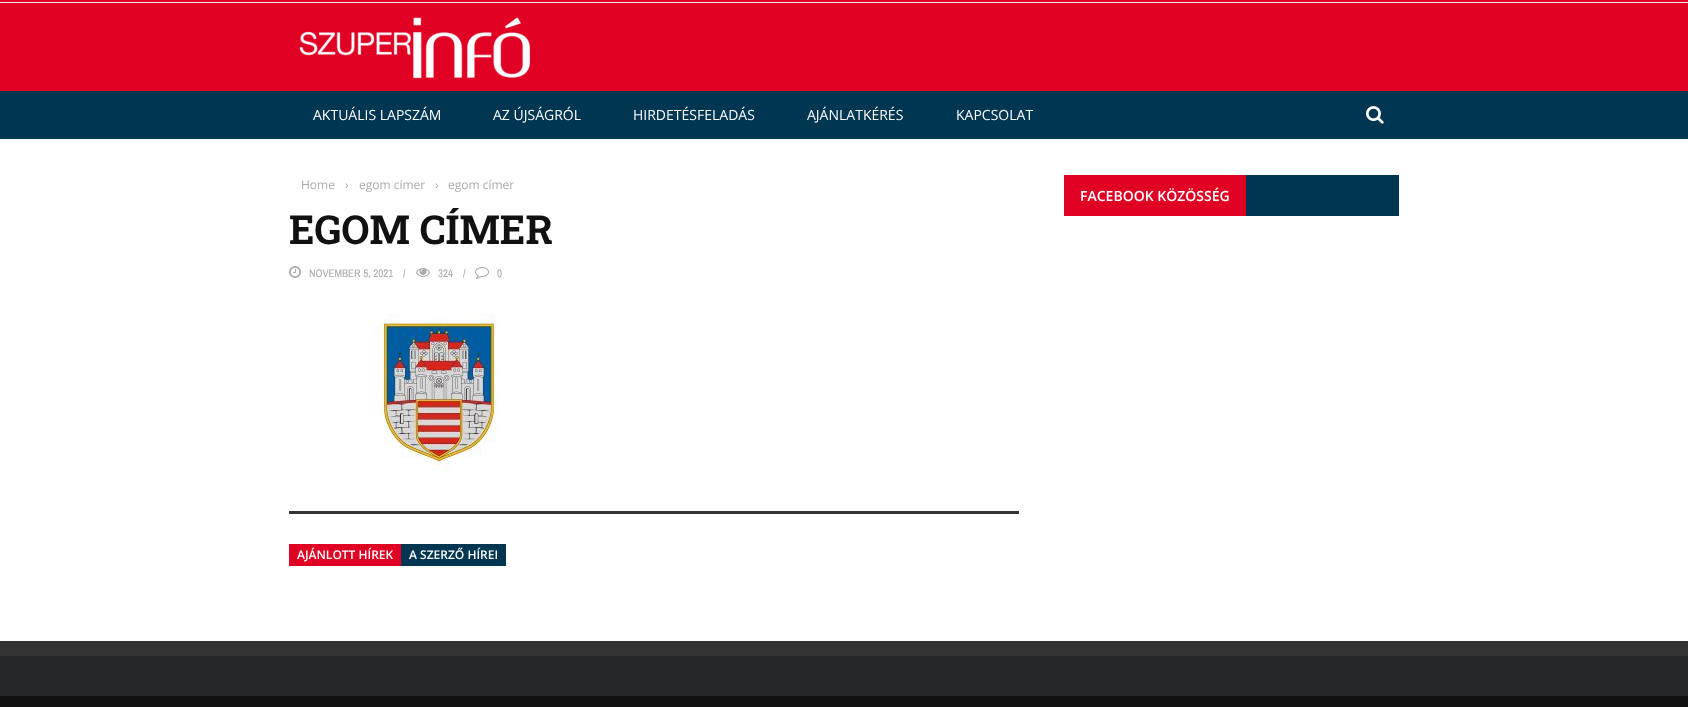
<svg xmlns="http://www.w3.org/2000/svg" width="1688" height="707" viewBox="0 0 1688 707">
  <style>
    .t1 { font: 14px Open Sans; fill: #fff; }
    .t2 { font: 12px Open Sans; fill: #aaa; }
    .t3 { font: bold 40px Roboto Slab; fill: #111; }
    .t4 { font: 11px Archivo Narrow; fill: #aaa; }
    .t5 { font: 600 12px Open Sans; fill: #fff; }
    .t6 { font: 600 14px Open Sans; fill: #fff; }
  </style>
  <rect width="100%" height="100%" fill="#fff"/>
  <rect x="0" y="3" width="1688" height="88" fill="#df0024"/>
  <rect x="0" y="0" width="1688" height="2" fill="#df0024"/>
  <rect x="0" y="2" width="1688" height="1" fill="#eee"/>
  <image x="299" y="17" width="232" height="62" href="images/1.png"/>
  <rect x="0" y="91" width="1688" height="48" fill="#003651"/>
  <text x="313" y="120" class="t1">AKTUÁLIS LAPSZÁM</text>
  <text x="493" y="120" class="t1">AZ ÚJSÁGRÓL</text>
  <text x="633" y="120" class="t1">HIRDETÉSFELADÁS</text>
  <text x="807" y="120" class="t1">AJÁNLATKÉRÉS</text>
  <text x="956" y="120" class="t1">KAPCSOLAT</text>
  <image x="1366" y="106" width="18" height="18" href="images/2.png"/>
  <text x="301" y="189" class="t2">Home</text>
  <text x="345" y="189" class="t2">›</text>
  <text x="359" y="189" class="t2">egom címer</text>
  <text x="435" y="189" class="t2">›</text>
  <text x="448" y="189" class="t2">egom címer</text>
  <text x="289" y="244" class="t3">EGOM CÍMER</text>
  <image x="289" y="266" width="12" height="12" href="images/3.png"/>
  <text x="309" y="277" class="t4">NOVEMBER 5, 2021</text>
  <text x="403" y="277" class="t4">/</text>
  <image x="416" y="268" width="14" height="9" href="images/4.png"/>
  <text x="438" y="277" class="t4">324</text>
  <text x="463" y="277" class="t4">/</text>
  <image x="475" y="267" width="14" height="12" href="images/5.png"/>
  <text x="497" y="277" class="t4">0</text>
  <image x="369" y="314" width="129" height="157" href="images/6.png"/>
  <rect x="289" y="511" width="730" height="3" fill="#333"/>
  <rect x="289" y="544" width="112" height="22" fill="#df0024"/>
  <text x="297" y="559" class="t5">AJÁNLOTT HÍREK</text>
  <rect x="401" y="544" width="105" height="22" fill="#003651"/>
  <text x="409" y="559" class="t5">A SZERZŐ HÍREI</text>
  <rect x="1246" y="175" width="153" height="41" fill="#003651"/>
  <rect x="1064" y="175" width="182" height="41" fill="#df0024"/>
  <text x="1080" y="201" class="t6">FACEBOOK KÖZÖSSÉG</text>
  <rect x="0" y="656" width="1688" height="40" fill="#252729"/>
  <rect x="0" y="641" width="1688" height="15" fill="#333"/>
  <rect x="0" y="696" width="1688" height="11" fill="#111"/>
</svg>
